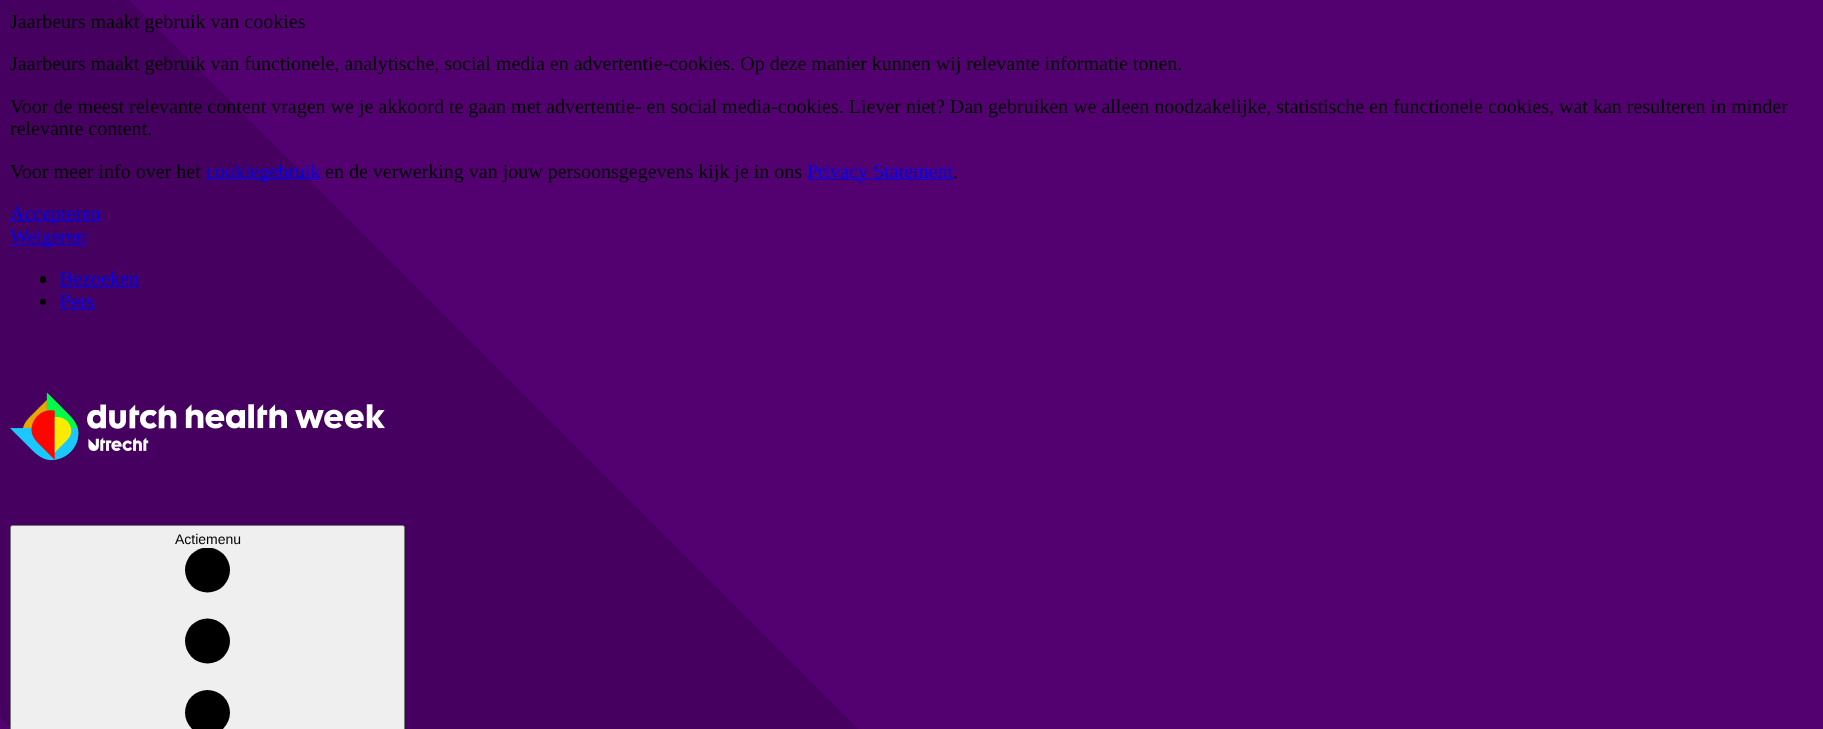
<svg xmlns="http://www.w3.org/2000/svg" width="1823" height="729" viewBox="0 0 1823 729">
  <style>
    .t1 { font: 20px Liberation Serif; fill: #000; }
    .t2 { font: 20px Liberation Serif; fill: #00e; }
    .t3 { font: 14px Liberation Sans; fill: #000; }
  </style>
  <defs>
    <linearGradient id="g1" gradientUnits="userSpaceOnUse" x1="-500" y1="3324" x2="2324" y2="500"><stop offset="0" stop-color="#530070"/><stop offset="0.55" stop-color="#530070"/><stop offset="0.55" stop-color="#46005f"/><stop offset="0.7" stop-color="#46005f"/><stop offset="0.7" stop-color="#530070"/><stop offset="1" stop-color="#530070"/></linearGradient>
    <clipPath id="clip1"><rect x="20" y="548" width="375" height="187"/></clipPath>
  </defs>
  <rect width="100%" height="100%" fill="#fff"/>
  <rect x="0" y="0" width="1823" height="729" fill="url(#g1)"/>
  <text x="10" y="28" class="t1">Jaarbeurs maakt gebruik van cookies</text>
  <text x="10" y="70" class="t1">Jaarbeurs maakt gebruik van functionele, analytische, social media en advertentie-cookies. Op deze manier kunnen wij relevante informatie tonen.</text>
  <text x="10" y="113" class="t1">Voor de meest relevante content vragen we je akkoord te gaan met advertentie- en social media-cookies. Liever niet? Dan gebruiken we alleen noodzakelijke, statistische en functionele cookies, wat kan resulteren in minder</text>
  <text x="10" y="135" class="t1">relevante content.</text>
  <text x="10" y="178" class="t1">Voor meer info over het</text>
  <rect x="206" y="179" width="114" height="1" fill="#00e"/>
  <text x="206" y="178" class="t2">cookiegebruik</text>
  <text x="325" y="178" class="t1">en de verwerking van jouw persoonsgegevens kijk je in ons</text>
  <rect x="808" y="179" width="146" height="1" fill="#00e"/>
  <text x="807" y="178" class="t2">Privacy Statement</text>
  <text x="953" y="178" class="t1">.</text>
  <rect x="10" y="221" width="91" height="1" fill="#00e"/>
  <text x="10" y="220" class="t2">Accepteren</text>
  <rect x="10" y="244" width="76" height="1" fill="#00e"/>
  <text x="10" y="243" class="t2">Weigeren</text>
  <rect x="40" y="276" width="6" height="7" rx="3" fill="#000"/>
  <text x="60" y="285" class="t2">Bezoeken</text>
  <rect x="60" y="286" width="79" height="1" fill="#00e"/>
  <circle cx="43" cy="302" r="3" fill="#000"/>
  <text x="60" y="308" class="t2">Pers</text>
  <rect x="60" y="309" width="35" height="1" fill="#00e"/>
  <image x="10" y="392" width="375" height="68" href="images/1.png"/>
  <rect x="10.5" y="525.5" width="394" height="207" rx="2" fill="#efefef" stroke="#767676"/>
  <text x="175" y="544" class="t3">Actiemenu</text>
  <g clip-path="url(#clip1)">
    <circle cx="207.5" cy="570" r="22.5" fill="#000"/>
  </g>
  <circle cx="207.5" cy="641" r="22.5" fill="#000"/>
  <circle cx="207.5" cy="712.5" r="22.5" fill="#000"/>
</svg>
